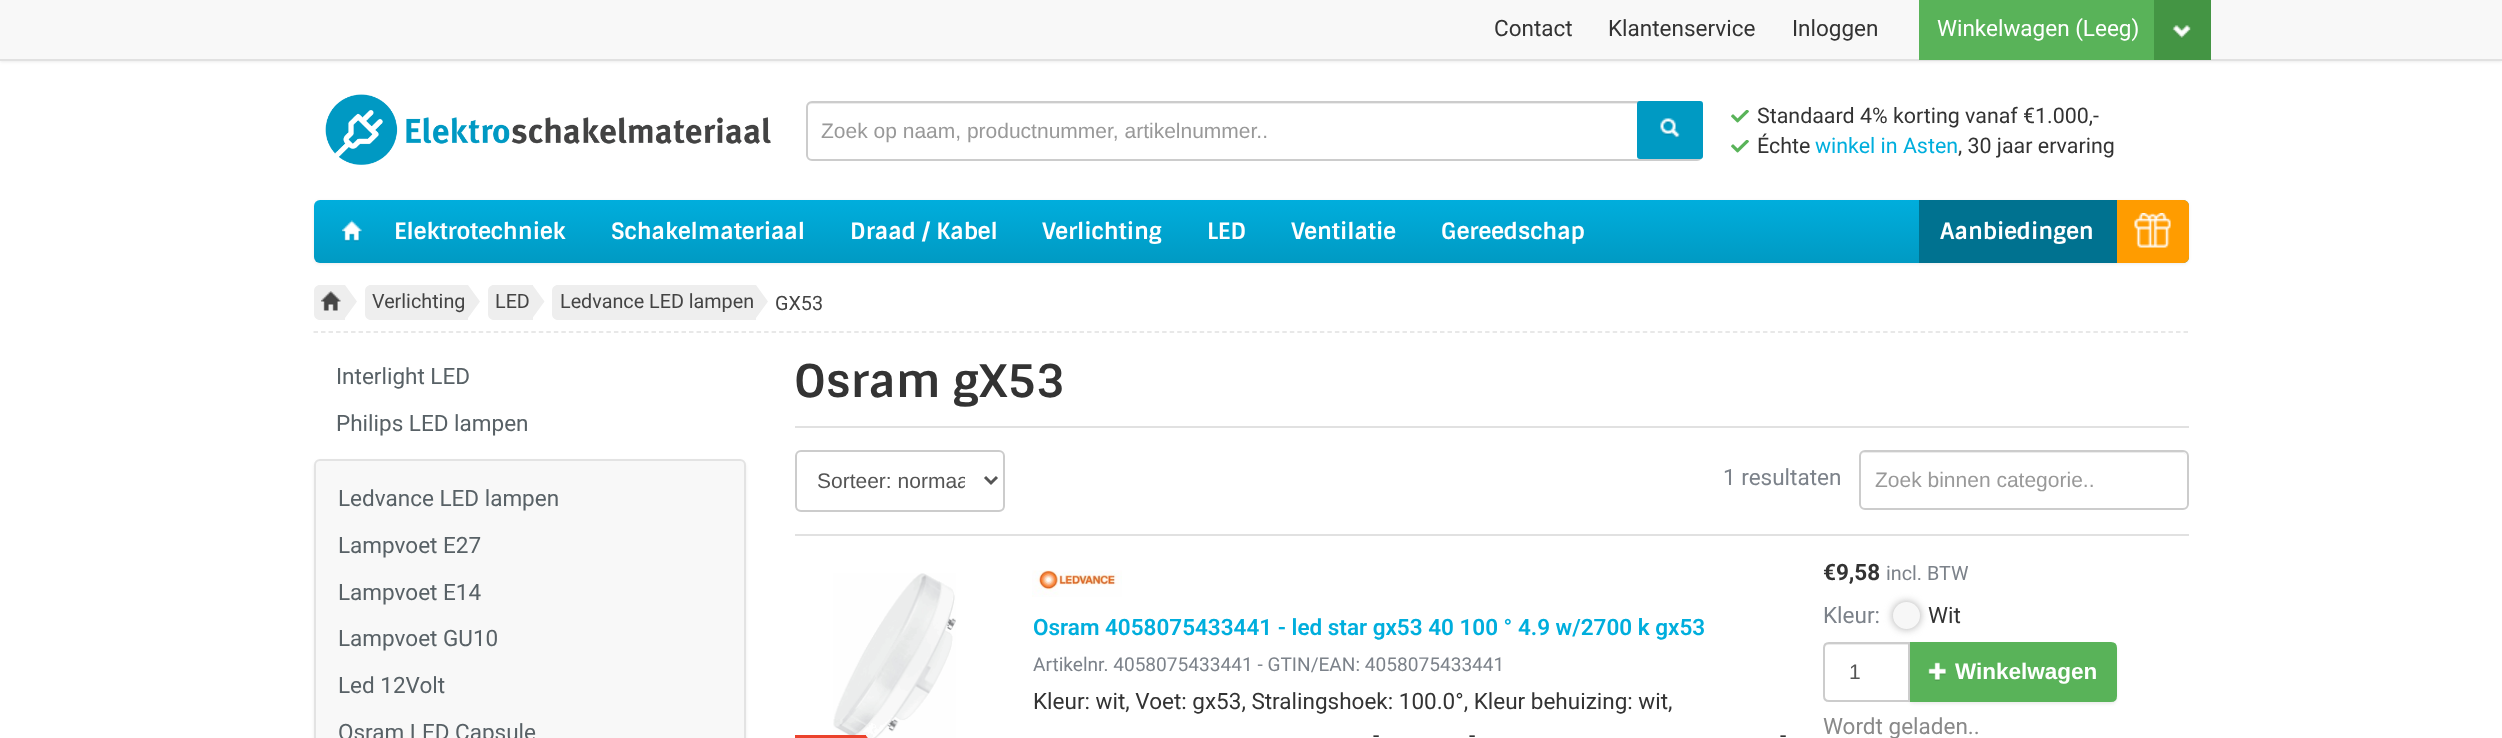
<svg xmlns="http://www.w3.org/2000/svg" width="2502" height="738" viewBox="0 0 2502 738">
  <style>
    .t1 { font: 22.5px Roboto; fill: #333; }
    .t2 { font: 22.5px Roboto; fill: #fff; }
    .t3 { font: 21px Liberation Sans; fill: #999; }
    .t4 { font: 21.4px Roboto; fill: #333; }
    .t5 { font: 21.4px Roboto; fill: #00aedd; }
    .t6 { font: bold 22.5px Sintony; fill: #fff; }
    .t7 { font: 19.75px Roboto; fill: #444; }
    .t8 { font: 22.5px Roboto; fill: #586166; }
    .t9 { font: bold 45px Sintony; fill: #333; }
    .t10 { font: 21px Liberation Sans; fill: #555; }
    .t11 { font: 22.5px Roboto; fill: #7c828a; }
    .t12 { font: 600 22.5px Roboto; fill: #00aedd; }
    .t13 { font: 19.1px Roboto; fill: #7c828a; }
    .t14 { font: bold 22.5px Roboto; fill: #333; }
    .t15 { font: 19.75px Roboto; fill: #7c828a; }
    .t16 { font: bold 22.5px Liberation Sans; fill: #fff; }
    .t17 { font: 22.5px Roboto; fill: #898989; }
  </style>
  <defs>
    <linearGradient id="g1" gradientUnits="userSpaceOnUse" x1="1251" y1="199" x2="1251" y2="263"><stop offset="0" stop-color="#00aedd"/><stop offset="1" stop-color="#009ac3"/></linearGradient>
    <clipPath id="clip1"><rect x="818" y="467" width="147" height="27"/></clipPath>
  </defs>
  <rect width="100%" height="100%" fill="#fff"/>
  <rect x="0" y="2" width="2502" height="60" fill="#4444441a" filter="blur(1.5px)"/>
  <rect x="0" y="0" width="2502" height="59" fill="#f8f8f8"/>
  <rect x="0" y="59" width="2502" height="2" fill="#e1e1e1"/>
  <text x="1494" y="36" class="t1">Contact</text>
  <text x="1608" y="36" class="t1">Klantenservice</text>
  <text x="1792" y="36" class="t1">Inloggen</text>
  <rect x="1919" y="0" width="235" height="60" fill="#59b359"/>
  <text x="1937" y="36" class="t2">Winkelwagen (Leeg)</text>
  <rect x="2154" y="0" width="57" height="60" fill="#449544"/>
  <image x="2172" y="25" width="19" height="14" href="images/1.png"/>
  <image x="325" y="94" width="446" height="71" href="images/2.png"/>
  <path d="M812 104H1696C1699 104 1701 106 1701 108V107C1701 104 1699 102 1696 102H812C809 102 807 104 807 107V108C807 106 809 104 812 104Z" fill="#ececec"/>
  <rect x="807" y="102" width="895" height="58" rx="5" fill="none" stroke="#ccc" stroke-width="2"/>
  <text x="821" y="138" class="t3">Zoek op naam, productnummer, artikelnummer..</text>
  <rect x="1638" y="102" width="64" height="56" rx="2" fill="#009ac3" stroke="#009ac3" stroke-width="2"/>
  <image x="1660" y="118" width="20" height="20" href="images/3.png"/>
  <image x="1731" y="110" width="18" height="13" href="images/4.png"/>
  <text x="1757" y="123" class="t4">Standaard 4% korting vanaf €1.000,-</text>
  <image x="1731" y="140" width="18" height="13" href="images/4.png"/>
  <text x="1757" y="153" class="t4">Échte</text>
  <text x="1815" y="153" class="t5">winkel in Asten</text>
  <text x="1958" y="153" class="t4">, 30 jaar ervaring</text>
  <rect x="314" y="201" width="1875" height="63" rx="6" fill="#4444441a" filter="blur(1.5px)"/>
  <rect x="314" y="200" width="1875" height="63" rx="6" fill="url(#g1)"/>
  <image x="342" y="220" width="20" height="22" href="images/5.png"/>
  <text x="394" y="239" class="t6">Elektrotechniek</text>
  <text x="611" y="239" class="t6">Schakelmateriaal</text>
  <text x="850" y="239" class="t6">Draad / Kabel</text>
  <text x="1042" y="239" class="t6">Verlichting</text>
  <text x="1207" y="239" class="t6">LED</text>
  <text x="1291" y="239" class="t6">Ventilatie</text>
  <text x="1441" y="239" class="t6">Gereedschap</text>
  <rect x="1919" y="200" width="198" height="63" fill="#007290"/>
  <text x="1940" y="239" class="t6">Aanbiedingen</text>
  <path d="M2117 200H2183C2186.5 200 2189 202.5 2189 206V257C2189 260.5 2186.5 263 2183 263H2117Z" fill="#ff9c00"/>
  <image x="2134" y="213" width="37" height="35" href="images/6.png"/>
  <path d="M313.5 332H2188.5" fill="none" stroke="#e1e1e1" stroke-width="1.5" stroke-dasharray="4.5 3.01"/>
  <path d="M320 285H345V320H320C316.5 320 314 317.5 314 314V291C314 287.5 316.5 285 320 285Z" fill="#eee"/>
  <image x="321" y="291" width="20" height="20" href="images/7.png"/>
  <path d="M345 318V285L357 301.5Z" fill="#eee"/>
  <path d="M371 285H468V320H371C367.5 320 365 317.5 365 314V291C365 287.5 367.5 285 371 285Z" fill="#eee"/>
  <text x="372" y="308" class="t7">Verlichting</text>
  <path d="M468 318V285L480 301.5Z" fill="#eee"/>
  <path d="M494 285H533V320H494C490.5 320 488 317.5 488 314V291C488 287.5 490.5 285 494 285Z" fill="#eee"/>
  <text x="495" y="308" class="t7">LED</text>
  <path d="M532.5 318V285L544.5 301.5Z" fill="#eee"/>
  <path d="M558 285H756V320H558C554.5 320 552 317.5 552 314V291C552 287.5 554.5 285 558 285Z" fill="#eee"/>
  <text x="560" y="308" class="t7">Ledvance LED lampen</text>
  <path d="M756 318V285L768 301.5Z" fill="#eee"/>
  <text x="775" y="310" class="t7">GX53</text>
  <text x="336" y="384" class="t8">Interlight LED</text>
  <text x="336" y="431" class="t8">Philips LED lampen</text>
  <rect x="314" y="461" width="432" height="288" rx="6" fill="#4444441a" filter="blur(1.5px)"/>
  <rect x="315" y="460" width="430" height="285" rx="5" fill="#f8f8f8" stroke="#e3e3e3" stroke-width="2"/>
  <text x="338" y="506" class="t8">Ledvance LED lampen</text>
  <text x="338" y="553" class="t8">Lampvoet E27</text>
  <text x="338" y="600" class="t8">Lampvoet E14</text>
  <text x="338" y="646" class="t8">Lampvoet GU10</text>
  <text x="338" y="693" class="t8">Led 12Volt</text>
  <text x="338" y="740" class="t8">Osram LED Capsule</text>
  <text x="794" y="397" class="t9">Osram gX53</text>
  <rect x="795" y="426" width="1394" height="2" fill="#e1e1e1"/>
  <rect x="796" y="451" width="208" height="60" rx="5" fill="none" stroke="#ccc" stroke-width="2"/>
  <path d="M985 477L991 483L997 477" fill="none" stroke="#555" stroke-width="3"/>
  <g clip-path="url(#clip1)">
    <text x="817" y="488" class="t10">Sorteer: normaa</text>
  </g>
  <text x="1723" y="485" class="t11">1 resultaten</text>
  <path d="M1864 453H2182C2185 453 2187 455 2187 458C2187 455 2185 452 2182 452H1865C1862 452 1860 455 1860 458C1860 455 1862 453 1864 453Z" fill="#ececec"/>
  <rect x="1860" y="451" width="328" height="58" rx="5" fill="none" stroke="#ccc" stroke-width="2"/>
  <text x="1875" y="487" class="t3">Zoek binnen categorie..</text>
  <rect x="795" y="534" width="1394" height="2" fill="#e1e1e1"/>
  <image x="833" y="573" width="123" height="165" href="images/8.png"/>
  <rect x="795" y="735" width="71" height="3" fill="#eb422c"/>
  <path d="M865.5 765V735L877.5 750Z" fill="#eb422c"/>
  <image x="1032" y="570" width="90" height="27" href="images/9.png"/>
  <text x="1033" y="635" class="t12">Osram 4058075433441 - led star gx53 40 100 ° 4.9 w/2700 k gx53</text>
  <text x="1033" y="671" class="t13">Artikelnr. 4058075433441 - GTIN/EAN: 4058075433441</text>
  <text x="1033" y="709" class="t1">Kleur: wit, Voet: gx53, Stralingshoek: 100.0°, Kleur behuizing: wit,</text>
  <text x="1373" y="743" class="t1">-</text>
  <text x="1469" y="743" class="t1">-</text>
  <text x="1780" y="743" class="t1">-</text>
  <text x="1823" y="580" class="t14">€9,58</text>
  <text x="1886" y="580" class="t15">incl. BTW</text>
  <text x="1823" y="623" class="t11">Kleur:</text>
  <rect x="1893" y="602" width="27" height="27" rx="13.5" fill="#aaa" filter="blur(4px)"/>
  <circle cx="1906.5" cy="615.5" r="13.5" fill="#f7f7f7"/>
  <text x="1928" y="623" class="t1">Wit</text>
  <rect x="1908" y="644" width="209" height="60" rx="6" fill="#4444441a" filter="blur(1.5px)"/>
  <path d="M1909 643H2111C2114 643 2116 645 2116 648V696C2116 699 2114 701 2111 701H1909Z" fill="#59b359" stroke="#59b359" stroke-width="2"/>
  <path d="M1829 642H1910V702H1829C1825.5 702 1823 699.5 1823 696V648C1823 644.5 1825.5 642 1829 642Z" fill="#fff"/>
  <path d="M1828 645H1908V644H1829C1826 644 1824 646 1824 649V650C1824 647 1826 645 1828 645Z" fill="#ececec"/>
  <path d="M1829 643H1909V701H1829C1826 701 1824 699 1824 696V648C1824 645 1826 643 1829 643Z" fill="none" stroke="#ccc" stroke-width="2"/>
  <text x="1849" y="679" class="t10">1</text>
  <image x="1928" y="662" width="18" height="19" href="images/10.png"/>
  <text x="1955" y="679" class="t16">Winkelwagen</text>
  <text x="1823" y="734" class="t17">Wordt geladen..</text>
</svg>
